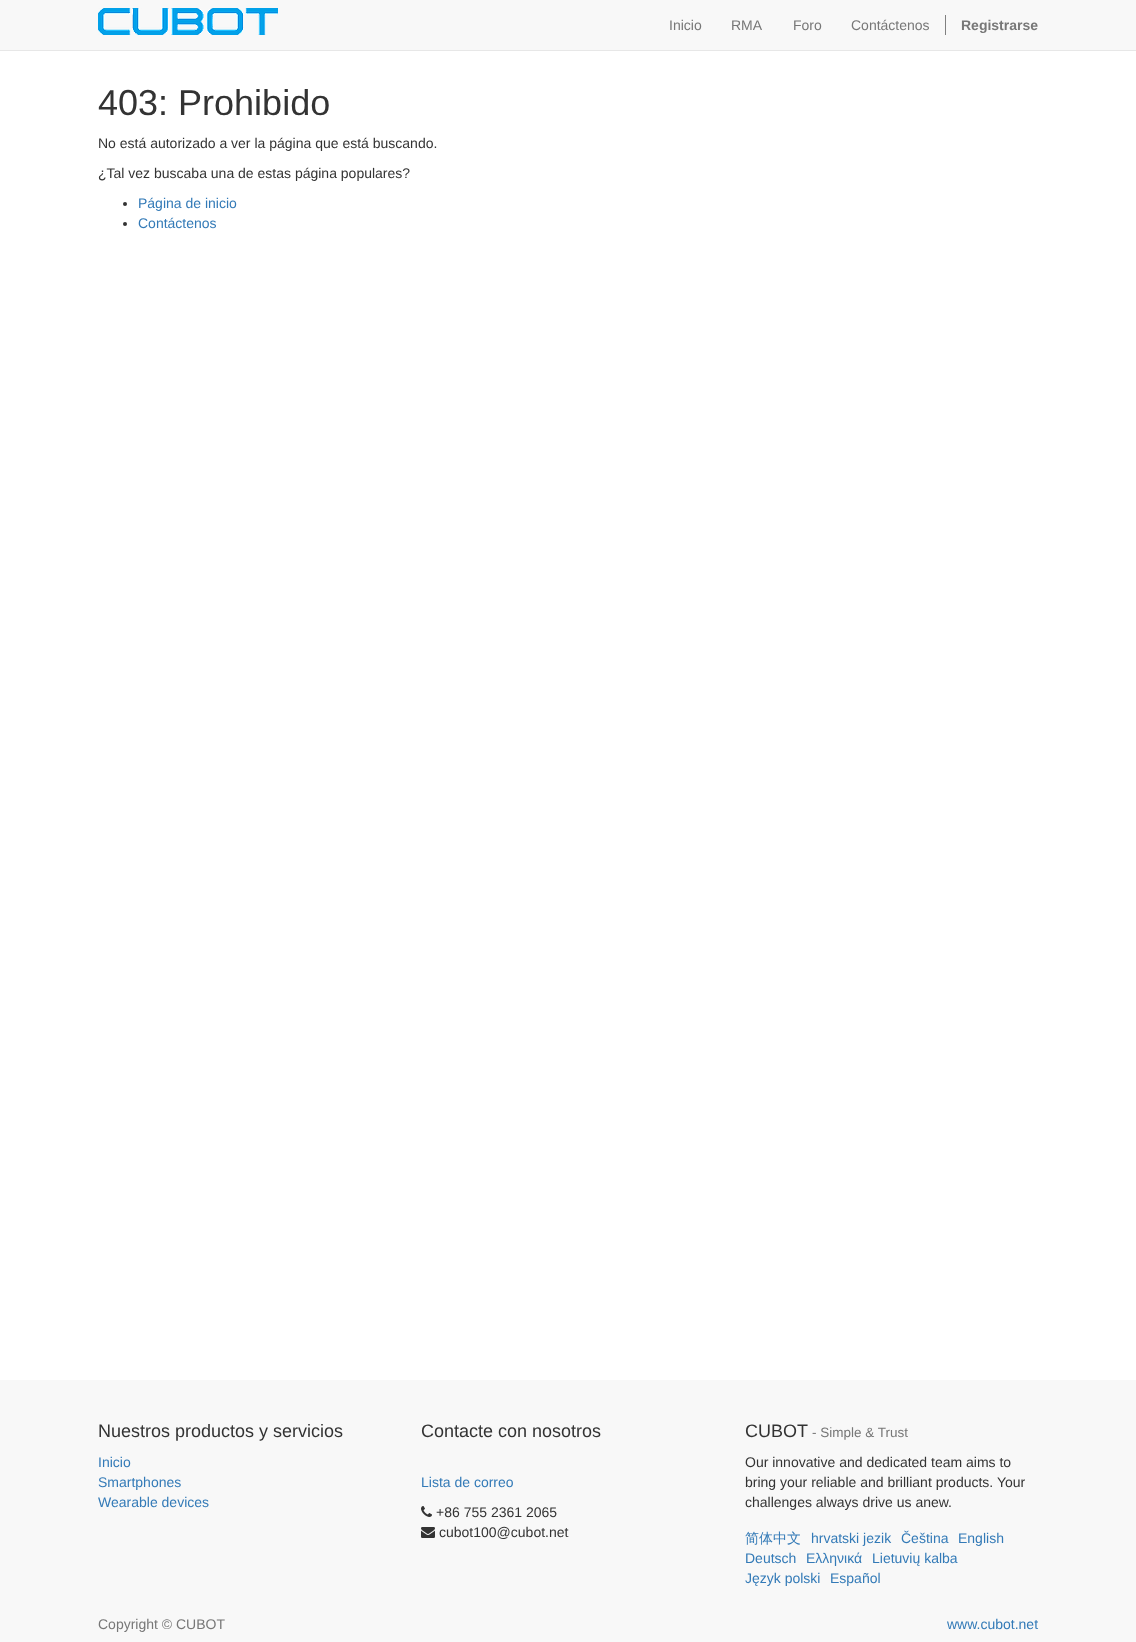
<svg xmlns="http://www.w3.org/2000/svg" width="1136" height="1642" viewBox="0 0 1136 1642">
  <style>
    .t1 { font: 14px Liberation Sans; fill: #777; }
    .t2 { font: bold 14px Liberation Sans; fill: #777; }
    .t3 { font: 36px Liberation Sans; fill: #333; }
    .t4 { font: 14px Liberation Sans; fill: #333; }
    .t5 { font: 14px Liberation Sans; fill: #337ab7; }
    .t6 { font: 18px Liberation Sans; fill: #333; }
    .t7 { font: 13.5px Liberation Sans; fill: #777; }
    .t8 { font: 500 14px WenQuanYi Zen Hei; fill: #337ab7; }
  </style>
  <rect width="100%" height="100%" fill="#fff"/>
  <rect x="0" y="0" width="1136" height="50" fill="#f8f8f8"/>
  <rect x="0" y="50" width="1136" height="1" fill="#e7e7e7"/>
  <image x="98" y="8" width="180" height="27" href="images/1.png"/>
  <text x="669" y="30" class="t1">Inicio</text>
  <text x="731" y="30" class="t1">RMA</text>
  <text x="793" y="30" class="t1">Foro</text>
  <text x="851" y="30" class="t1">Contáctenos</text>
  <rect x="945" y="15" width="1" height="20" fill="#808080"/>
  <text x="961" y="30" class="t2">Registrarse</text>
  <text x="98" y="115" class="t3">403: Prohibido</text>
  <text x="98" y="148" class="t4">No está autorizado a ver la página que está buscando.</text>
  <text x="98" y="178" class="t4">¿Tal vez buscaba una de estas página populares?</text>
  <circle cx="125" cy="204" r="2" fill="#333"/>
  <text x="138" y="208" class="t5">Página de inicio</text>
  <circle cx="125" cy="224" r="2" fill="#333"/>
  <text x="138" y="228" class="t5">Contáctenos</text>
  <rect x="0" y="1380" width="1136" height="262" fill="#f8f8f8"/>
  <text x="98" y="1437" class="t6">Nuestros productos y servicios</text>
  <text x="98" y="1467" class="t5">Inicio</text>
  <text x="98" y="1487" class="t5">Smartphones</text>
  <text x="98" y="1507" class="t5">Wearable devices</text>
  <text x="421" y="1437" class="t6">Contacte con nosotros</text>
  <text x="421" y="1487" class="t5">Lista de correo</text>
  <image x="421" y="1506" width="11" height="11" href="images/2.png"/>
  <text x="436" y="1517" class="t4">+86 755 2361 2065</text>
  <image x="421" y="1527" width="14" height="11" href="images/3.png"/>
  <text x="439" y="1537" class="t4">cubot100@cubot.net</text>
  <text x="745" y="1437" class="t6">CUBOT</text>
  <text x="812" y="1437" class="t7">- Simple &amp; Trust</text>
  <text x="745" y="1467" class="t4">Our innovative and dedicated team aims to</text>
  <text x="745" y="1487" class="t4">bring your reliable and brilliant products. Your</text>
  <text x="745" y="1507" class="t4">challenges always drive us anew.</text>
  <text x="745" y="1543" class="t8">简体中文</text>
  <text x="811" y="1543" class="t5">hrvatski jezik</text>
  <text x="901" y="1543" class="t5">Čeština</text>
  <text x="958" y="1543" class="t5">English</text>
  <text x="745" y="1563" class="t5">Deutsch</text>
  <text x="806" y="1563" class="t5">Ελληνικά</text>
  <text x="872" y="1563" class="t5">Lietuvių kalba</text>
  <text x="745" y="1583" class="t5">Język polski</text>
  <text x="830" y="1583" class="t5">Español</text>
  <text x="98" y="1629" class="t1">Copyright © CUBOT</text>
  <text x="947" y="1629" class="t5">www.cubot.net</text>
</svg>
